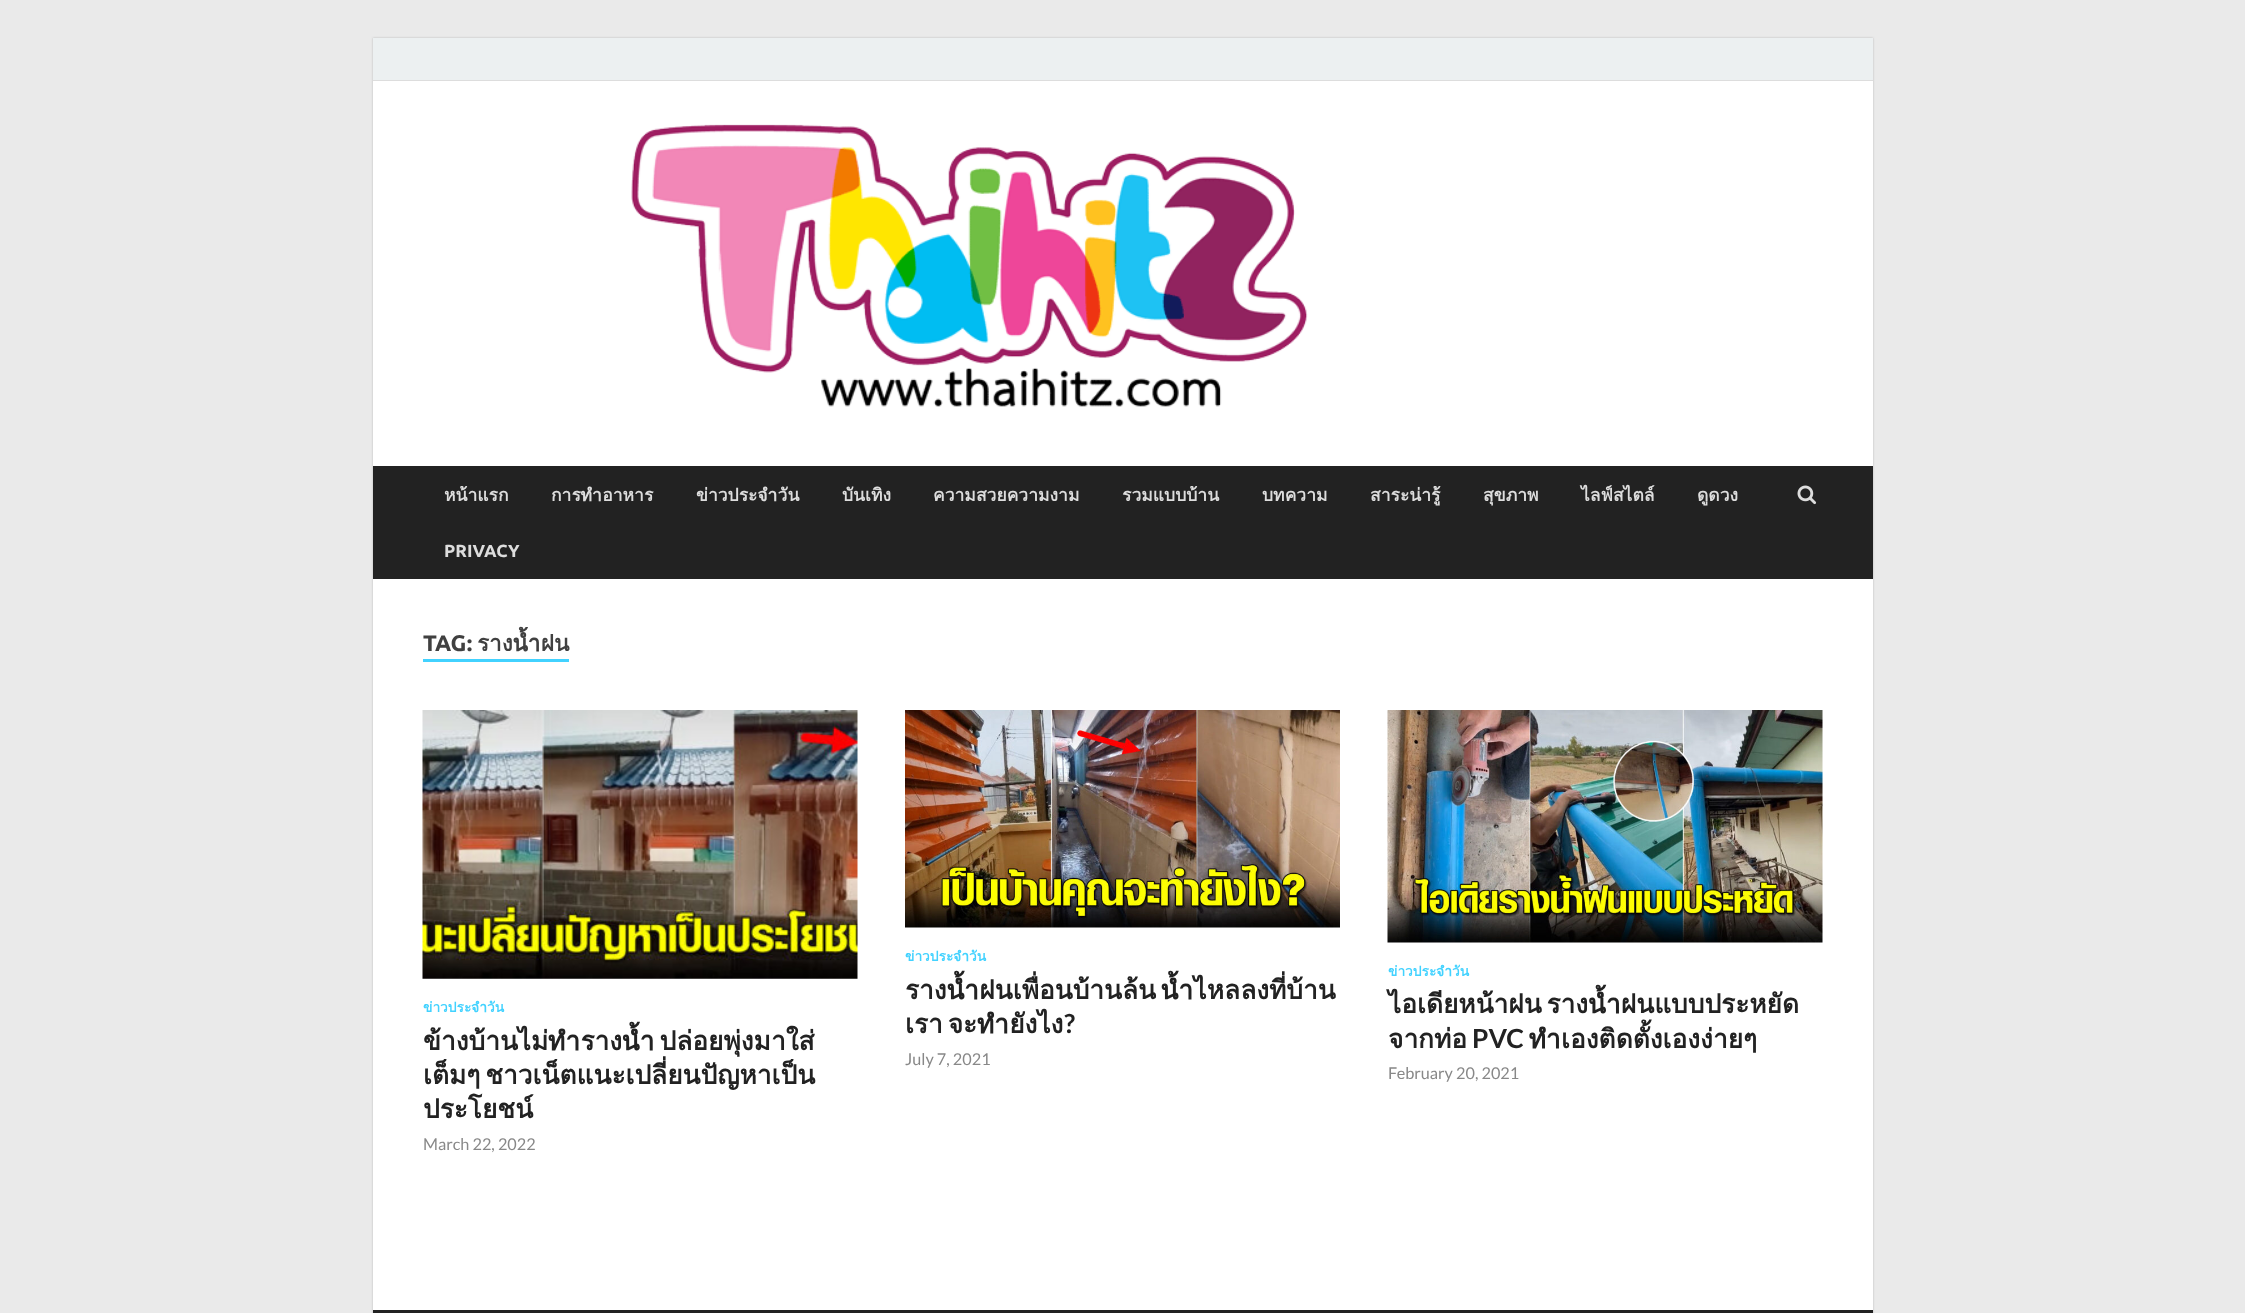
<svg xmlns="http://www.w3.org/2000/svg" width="2245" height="1313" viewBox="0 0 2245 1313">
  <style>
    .t1 { font: bold 17.5px Loma; fill: #ddd; }
    .t2 { font: bold 17.5px Ubuntu; fill: #ddd; }
    .t3 { font: bold 22.5px Ubuntu; fill: #404040; }
    .t4 { font: bold 22.5px Loma; fill: #404040; }
    .t5 { font: bold 13.75px Loma; fill: #42d2ff; }
    .t6 { font: bold 26.25px Loma; fill: #222; }
    .t7 { font: 16.25px Lato; fill: #888; }
    .t8 { font: bold 26.25px Lato; fill: #222; }
  </style>
  <rect width="100%" height="100%" fill="#eaeaea"/>
  <rect x="373" y="38" width="1500" height="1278" fill="#bbb" filter="blur(1px)"/>
  <rect x="373" y="81" width="1500" height="1229" fill="#fff"/>
  <rect x="373" y="38" width="1500" height="42" fill="#ecf0f1"/>
  <rect x="373" y="80" width="1500" height="1" fill="#ddd"/>
  <image x="631" y="124" width="677" height="283" href="images/1.png"/>
  <rect x="373" y="466" width="1500" height="113" fill="#222"/>
  <text x="444" y="501" class="t1">หน้าแรก</text>
  <text x="551" y="501" class="t1">การทำอาหาร</text>
  <text x="696" y="501" class="t1">ข่าวประจำวัน</text>
  <text x="842" y="501" class="t1">บันเทิง</text>
  <text x="933" y="501" class="t1">ความสวยความงาม</text>
  <text x="1122" y="501" class="t1">รวมแบบบ้าน</text>
  <text x="1262" y="501" class="t1">บทความ</text>
  <text x="1370" y="501" class="t1">สาระน่ารู้</text>
  <text x="1483" y="501" class="t1">สุขภาพ</text>
  <text x="1581" y="501" class="t1">ไลฟ์สไตล์</text>
  <text x="1697" y="501" class="t1">ดูดวง</text>
  <text x="444" y="557" class="t2">PRIVACY</text>
  <image x="1797" y="485" width="20" height="20" href="images/2.png"/>
  <text x="423" y="651" class="t3">TAG:</text>
  <rect x="423" y="659" width="146" height="3" fill="#42d2ff"/>
  <text x="477" y="651" class="t4">รางน้ำฝน</text>
  <image x="422" y="710" width="436" height="269" href="images/3.png"/>
  <text x="423" y="1012" class="t5">ข่าวประจำวัน</text>
  <text x="423" y="1050" word-spacing="-4" class="t6">ข้างบ้านไม่ทำรางน้ำ ปล่อยพุ่งมาใส่</text>
  <text x="423" y="1084" word-spacing="-4" class="t6">เต็มๆ ชาวเน็ตแนะเปลี่ยนปัญหาเป็น</text>
  <text x="423" y="1118" class="t6">ประโยชน์</text>
  <text x="423" y="1150" class="t7">March 22, 2022</text>
  <image x="905" y="710" width="435" height="218" href="images/4.png"/>
  <text x="905" y="961" class="t5">ข่าวประจำวัน</text>
  <text x="905" y="999" word-spacing="-4" class="t6">รางน้ำฝนเพื่อนบ้านล้น น้ำไหลลงที่บ้าน</text>
  <text x="905" y="1033" word-spacing="-4" class="t6">เรา จะทำยังไง</text>
  <text x="1064" y="1033" class="t8">?</text>
  <text x="905" y="1065" class="t7">July 7, 2021</text>
  <image x="1387" y="710" width="436" height="233" href="images/5.png"/>
  <text x="1388" y="976" class="t5">ข่าวประจำวัน</text>
  <text x="1388" y="1013" word-spacing="-4" class="t6">ไอเดียหน้าฝน รางน้ำฝนแบบประหยัด</text>
  <text x="1388" y="1048" class="t6">จากท่อ</text>
  <text x="1472" y="1048" class="t8">PVC</text>
  <text x="1529" y="1048" class="t6">ทำเองติดตั้งเองง่ายๆ</text>
  <text x="1388" y="1079" class="t7">February 20, 2021</text>
  <rect x="373" y="1310" width="1500" height="3" fill="#222"/>
</svg>
